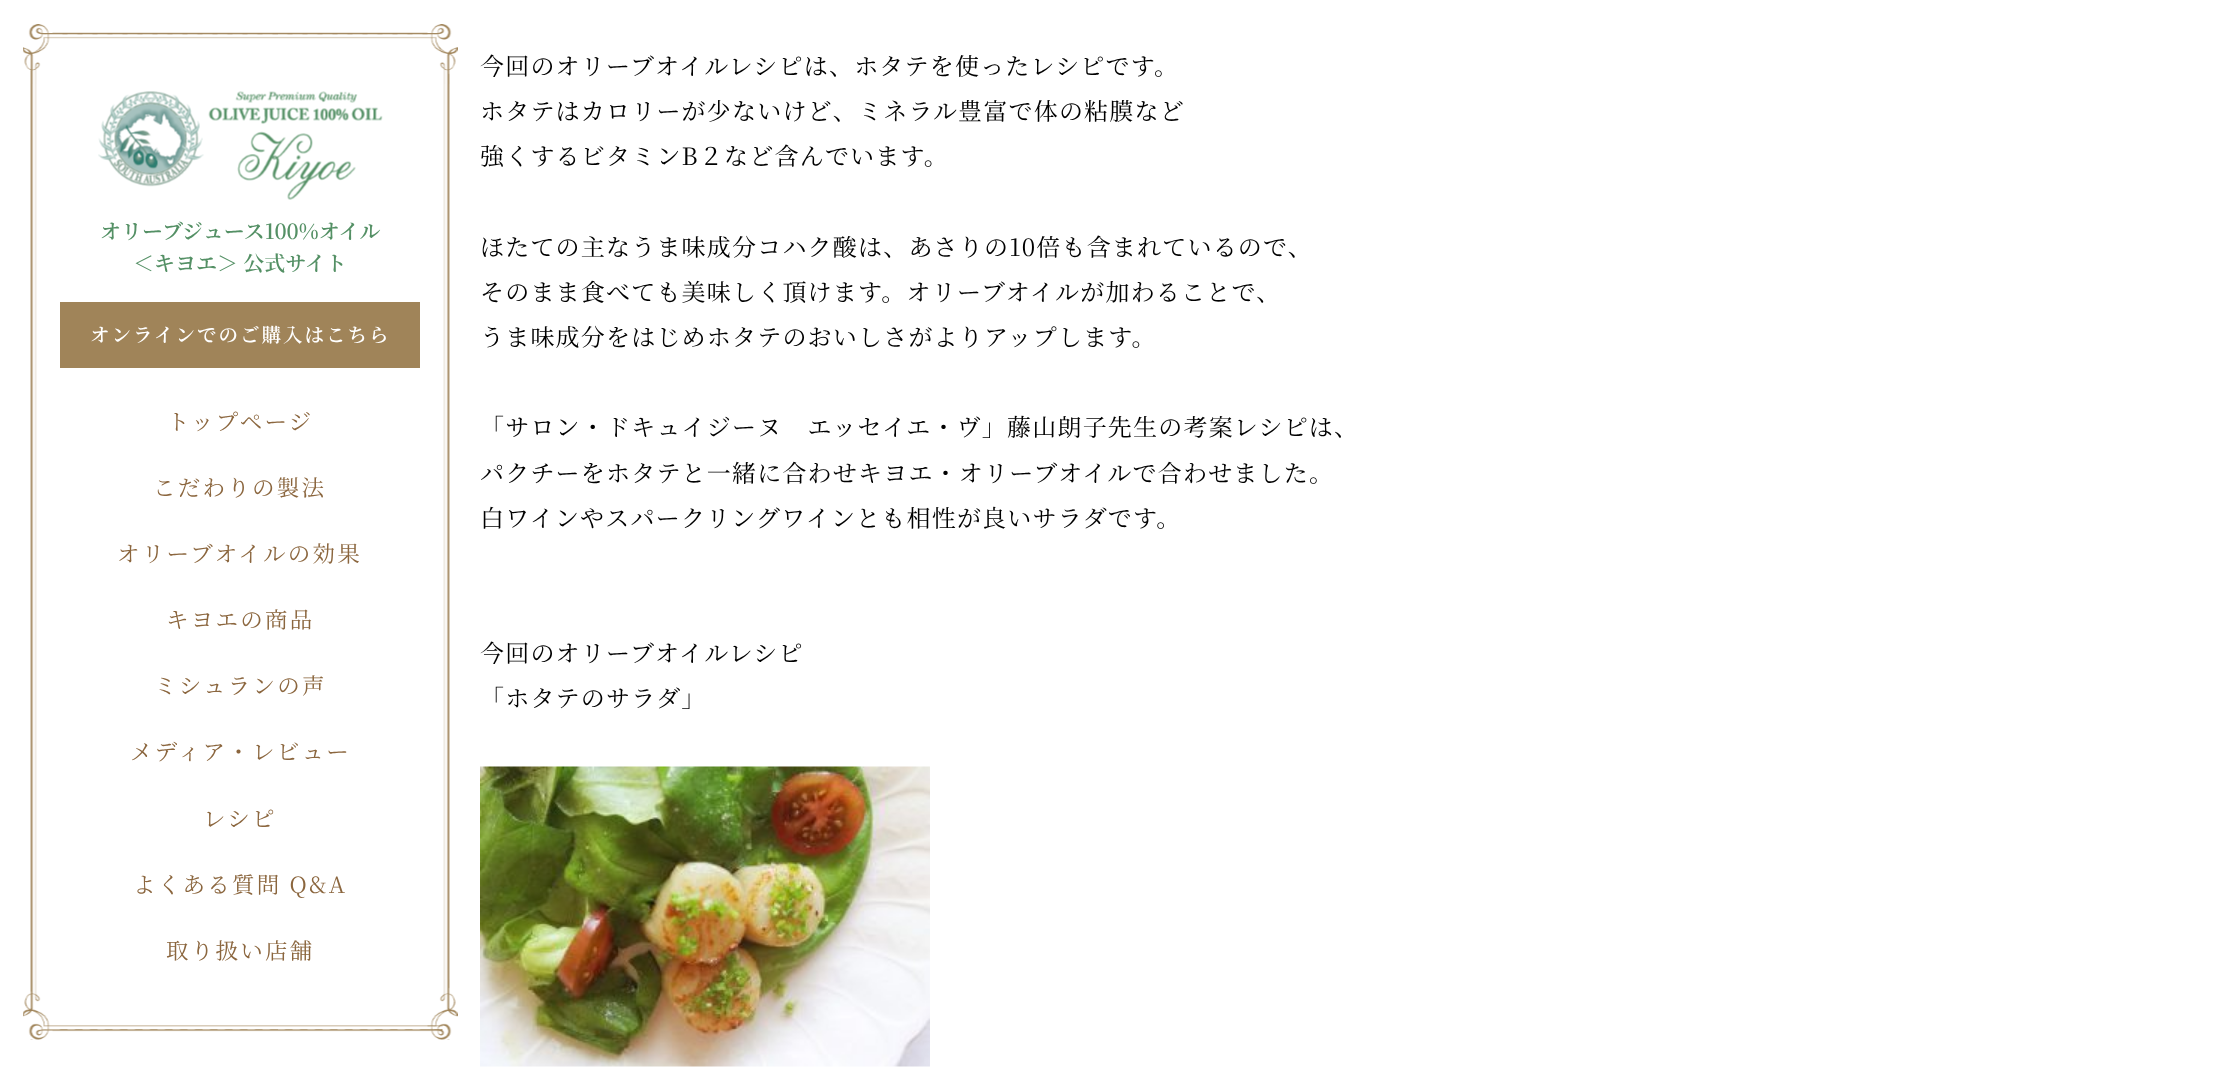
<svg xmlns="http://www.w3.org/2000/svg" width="2228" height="1078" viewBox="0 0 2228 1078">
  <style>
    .t1 { font: 600 21px Noto Serif JP; fill: #549065; }
    .t2 { font: 600 19.5px Noto Serif JP; letter-spacing: 2px; fill: #fff; }
    .t3 { font: 22.5px Noto Serif JP; letter-spacing: 2.25px; fill: #8b663e; }
    .t4 { font: 24px Noto Serif JP; letter-spacing: 1.2px; fill: #000; }
  </style>
  <rect width="100%" height="100%" fill="#fff"/>
  <image x="23" y="24" width="435" height="1016" href="images/1.png"/>
  <image x="98" y="91" width="285" height="109" href="images/2.png"/>
  <text x="100" y="239" class="t1">オリーブジュース100%オイル</text>
  <text x="133" y="271" class="t1">＜キヨエ＞ 公式サイト</text>
  <rect x="60" y="302" width="360" height="66" fill="#a08459"/>
  <text x="90" y="342" class="t2">オンラインでのご購入はこちら</text>
  <text x="167" y="430" class="t3">トップページ</text>
  <text x="153" y="496" class="t3">こだわりの製法</text>
  <text x="117" y="562" class="t3">オリーブオイルの効果</text>
  <text x="166" y="628" class="t3">キヨエの商品</text>
  <text x="154" y="694" class="t3">ミシュランの声</text>
  <text x="130" y="760" class="t3">メディア・レビュー</text>
  <text x="203" y="827" class="t3">レシピ</text>
  <text x="133" y="893" class="t3">よくある質問 Q&amp;A</text>
  <text x="166" y="959" class="t3">取り扱い店舗</text>
  <text x="480" y="75" class="t4">今回のオリーブオイルレシピは、ホタテを使ったレシピです。</text>
  <text x="480" y="120" class="t4">ホタテはカロリーが少ないけど、ミネラル豊富で体の粘膜など</text>
  <text x="480" y="165" class="t4">強くするビタミンB２など含んでいます。</text>
  <text x="480" y="256" class="t4">ほたての主なうま味成分コハク酸は、あさりの10倍も含まれているので、</text>
  <text x="480" y="301" class="t4">そのまま食べても美味しく頂けます。オリーブオイルが加わることで、</text>
  <text x="480" y="346" class="t4">うま味成分をはじめホタテのおいしさがよりアップします。</text>
  <text x="480" y="436" class="t4">「サロン・ドキュイジーヌ　エッセイエ・ヴ」藤山朗子先生の考案レシピは、</text>
  <text x="480" y="482" class="t4">パクチーをホタテと一緒に合わせキヨエ・オリーブオイルで合わせました。</text>
  <text x="480" y="527" class="t4">白ワインやスパークリングワインとも相性が良いサラダです。</text>
  <text x="480" y="662" class="t4">今回のオリーブオイルレシピ</text>
  <text x="480" y="707" class="t4">「ホタテのサラダ」</text>
  <image x="480" y="766" width="450" height="301" href="images/3.png"/>
</svg>
